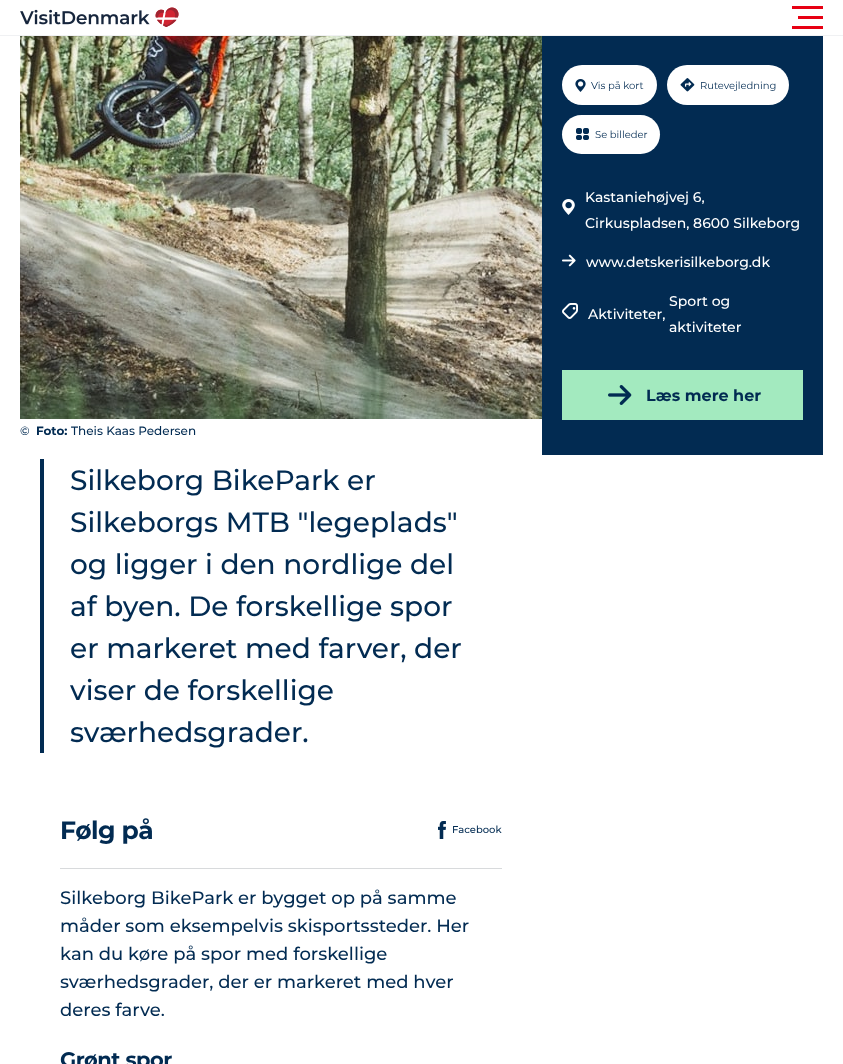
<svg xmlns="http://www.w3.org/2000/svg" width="843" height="1064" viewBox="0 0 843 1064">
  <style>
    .t1 { font: 10px Montserrat; fill: #022b52; }
    .t2 { font: 500 14px Montserrat; fill: #fff; }
    .t3 { font: bold 16px Montserrat; fill: #022b52; }
    .t4 { font: 500 12px Montserrat; fill: #022b52; }
    .t5 { font: bold 12px Montserrat; fill: #022b52; }
    .t6 { font: 500 28px Montserrat; fill: #022b52; }
    .t7 { font: bold 25px Montserrat; letter-spacing: -0.5px; fill: #022b52; }
    .t8 { font: 500 10px Montserrat; fill: #022b52; }
    .t9 { font: 500 18px Montserrat; fill: #022b52; }
    .t10 { font: bold 21px Montserrat; letter-spacing: -0.5px; fill: #022b52; }
  </style>
  <rect width="100%" height="100%" fill="#fff"/>
  <rect x="0" y="35" width="843" height="1" fill="#f0f1f3"/>
  <image x="20" y="7" width="159" height="20" href="images/1.png"/>
  <rect x="792" y="6" width="31" height="3" fill="#e70013"/>
  <rect x="798" y="16" width="25" height="3" fill="#e70013"/>
  <rect x="792" y="26" width="31" height="3" fill="#e70013"/>
  <rect x="542" y="36" width="281" height="419" fill="#022b52"/>
  <rect x="562" y="65" width="95" height="40" rx="20" fill="#fff"/>
  <image x="575" y="79" width="11" height="13" href="images/2.png"/>
  <text x="591" y="89" class="t1">Vis på kort</text>
  <rect x="667" y="65" width="122" height="40" rx="20" fill="#fff"/>
  <image x="680" y="78" width="15" height="14" href="images/3.png"/>
  <text x="700" y="89" class="t1">Rutevejledning</text>
  <rect x="562" y="115" width="98" height="39" rx="19.5" fill="#fff"/>
  <image x="576" y="128" width="13" height="12" href="images/4.png"/>
  <text x="595" y="138" class="t1">Se billeder</text>
  <image x="562" y="199" width="13" height="16" href="images/5.png"/>
  <text x="585" y="202" class="t2">Kastaniehøjvej 6,</text>
  <text x="585" y="228" class="t2">Cirkuspladsen, 8600 Silkeborg</text>
  <image x="562" y="254" width="14" height="13" href="images/6.png"/>
  <text x="586" y="267" class="t2">www.detskerisilkeborg.dk</text>
  <image x="562" y="303" width="16" height="16" href="images/7.png"/>
  <text x="588" y="319" class="t2">Aktiviteter,</text>
  <text x="669" y="306" class="t2">Sport og</text>
  <text x="669" y="332" class="t2">aktiviteter</text>
  <rect x="562" y="370" width="241" height="50" fill="#a3eabf"/>
  <image x="608" y="385" width="24" height="20" href="images/8.png"/>
  <text x="646" y="401" class="t3">Læs mere her</text>
  <image x="20" y="36" width="522" height="383" href="images/9.png"/>
  <text x="20" y="435" class="t4">©</text>
  <text x="36" y="435" class="t5">Foto:</text>
  <text x="71" y="435" class="t4">Theis Kaas Pedersen</text>
  <rect x="40" y="459" width="4" height="294" fill="#022b52"/>
  <text x="70" y="490" class="t6">Silkeborg BikePark er</text>
  <text x="70" y="532" class="t6">Silkeborgs MTB "legeplads"</text>
  <text x="70" y="574" class="t6">og ligger i den nordlige del</text>
  <text x="70" y="616" class="t6">af byen. De forskellige spor</text>
  <text x="70" y="658" class="t6">er markeret med farver, der</text>
  <text x="70" y="700" class="t6">viser de forskellige</text>
  <text x="70" y="742" class="t6">sværhedsgrader.</text>
  <rect x="60" y="868" width="442" height="1" fill="#d8dadc"/>
  <text x="60" y="839" class="t7">Følg på</text>
  <image x="438" y="821" width="8" height="18" href="images/10.png"/>
  <text x="452" y="833" class="t8">Facebook</text>
  <text x="60" y="904" class="t9">Silkeborg BikePark er bygget op på samme</text>
  <text x="60" y="932" class="t9">måder som eksempelvis skisportssteder. Her</text>
  <text x="60" y="960" class="t9">kan du køre på spor med forskellige</text>
  <text x="60" y="988" class="t9">sværhedsgrader, der er markeret med hver</text>
  <text x="60" y="1016" class="t9">deres farve.</text>
  <text x="60" y="1067" class="t10">Grønt spor</text>
</svg>
